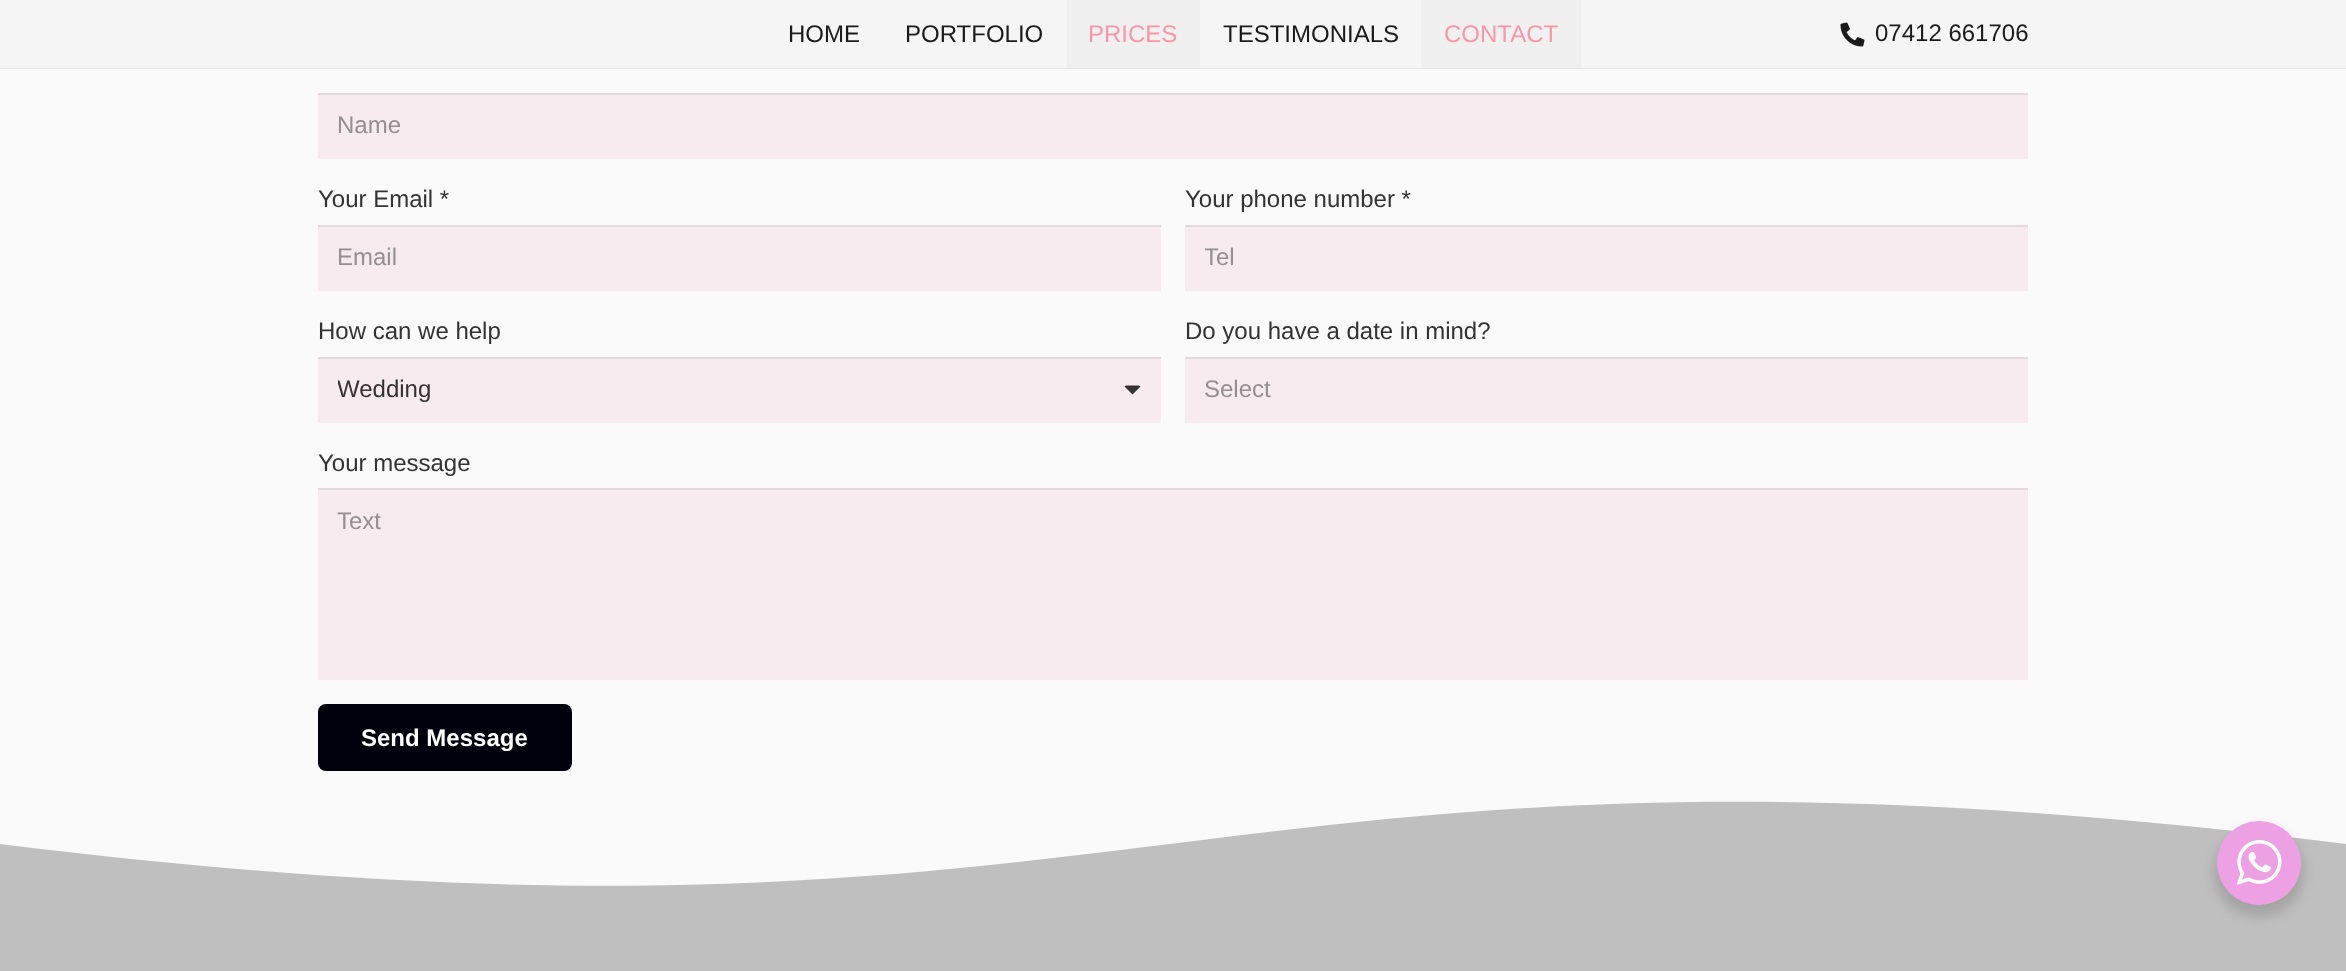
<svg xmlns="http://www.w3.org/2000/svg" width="2346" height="971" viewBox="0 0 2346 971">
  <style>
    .t1 { font: 24px Liberation Sans; fill: #1a1a1a; }
    .t2 { font: 24px Liberation Sans; fill: #fa96aa; }
    .t3 { font: 24px Liberation Sans; fill: #958f91; }
    .t4 { font: 24px Liberation Sans; fill: #333; }
    .t5 { font: bold 24px Liberation Sans; fill: #fff; }
  </style>
  <defs>
    <clipPath id="clip1"><rect x="1205" y="245" width="804" height="27"/></clipPath>
    <clipPath id="clip2"><rect x="338" y="357" width="756" height="66"/></clipPath>
  </defs>
  <rect width="100%" height="100%" fill="#fafafa"/>
  <rect x="0" y="68" width="2346" height="1" fill="#00000014"/>
  <rect x="0" y="0" width="2346" height="68" fill="#f5f5f5"/>
  <text x="788" y="42" class="t1">HOME</text>
  <text x="905" y="42" class="t1">PORTFOLIO</text>
  <rect x="1067" y="0" width="133" height="68" fill="#f0f0f0"/>
  <text x="1088" y="42" class="t2">PRICES</text>
  <text x="1223" y="42" class="t1">TESTIMONIALS</text>
  <rect x="1421" y="0" width="160" height="68" fill="#f0f0f0"/>
  <text x="1444" y="42" class="t2">CONTACT</text>
  <image x="1840" y="22" width="25" height="25" href="images/1.png"/>
  <text x="1875" y="41" class="t1">07412 661706</text>
  <rect x="318" y="95" width="1710" height="64" fill="#f7ebef"/>
  <rect x="318" y="93" width="1710" height="2" fill="#e3d8dc"/>
  <text x="337" y="133" class="t3">Name</text>
  <text x="318" y="207" class="t4">Your Email *</text>
  <rect x="318" y="227" width="843" height="64" fill="#f7ebef"/>
  <rect x="318" y="225" width="843" height="2" fill="#e3d8dc"/>
  <text x="337" y="265" class="t3">Email</text>
  <text x="1185" y="207" class="t4">Your phone number *</text>
  <rect x="1185" y="227" width="843" height="64" fill="#f7ebef"/>
  <rect x="1185" y="225" width="843" height="2" fill="#e3d8dc"/>
  <g clip-path="url(#clip1)">
    <text x="1204" y="265" class="t3">Tel</text>
  </g>
  <text x="318" y="339" class="t4">How can we help</text>
  <rect x="318" y="359" width="843" height="64" fill="#f7ebef"/>
  <rect x="318" y="357" width="843" height="2" fill="#e3d8dc"/>
  <g clip-path="url(#clip2)">
    <text x="337" y="397" class="t4">Wedding</text>
  </g>
  <path d="M1126.5 385.5C1126 385.5 1125 386 1124.5 386.5L1132.5 394.5L1140.5 386.5C1140 386 1139 385.5 1138.5 385.5Z" fill="#333"/>
  <text x="1185" y="339" class="t4">Do you have a date in mind?</text>
  <rect x="1185" y="359" width="843" height="64" fill="#f7ebef"/>
  <rect x="1185" y="357" width="843" height="2" fill="#e3d8dc"/>
  <text x="1204" y="397" class="t3">Select</text>
  <text x="318" y="471" class="t4">Your message</text>
  <rect x="318" y="490" width="1710" height="190" fill="#f7ebef"/>
  <rect x="318" y="488" width="1710" height="2" fill="#e3d8dc"/>
  <text x="337" y="529" class="t3">Text</text>
  <rect x="318" y="704" width="254" height="67" rx="8" fill="#00000c"/>
  <text x="361" y="746" class="t5">Send Message</text>
  <path d="M2346 844C1173 698 1173 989 0 844V892H2346Z" fill="#bfbfbf"/>
  <rect x="0" y="892" width="2346" height="79" fill="#bfbfbf"/>
  <rect x="2214" y="827" width="90" height="90" rx="45" fill="#00000024" filter="blur(6px)"/>
  <circle cx="2259" cy="863" r="42" fill="#eda1e4"/>
  <image x="2237" y="840" width="45" height="45" href="images/2.png"/>
</svg>
